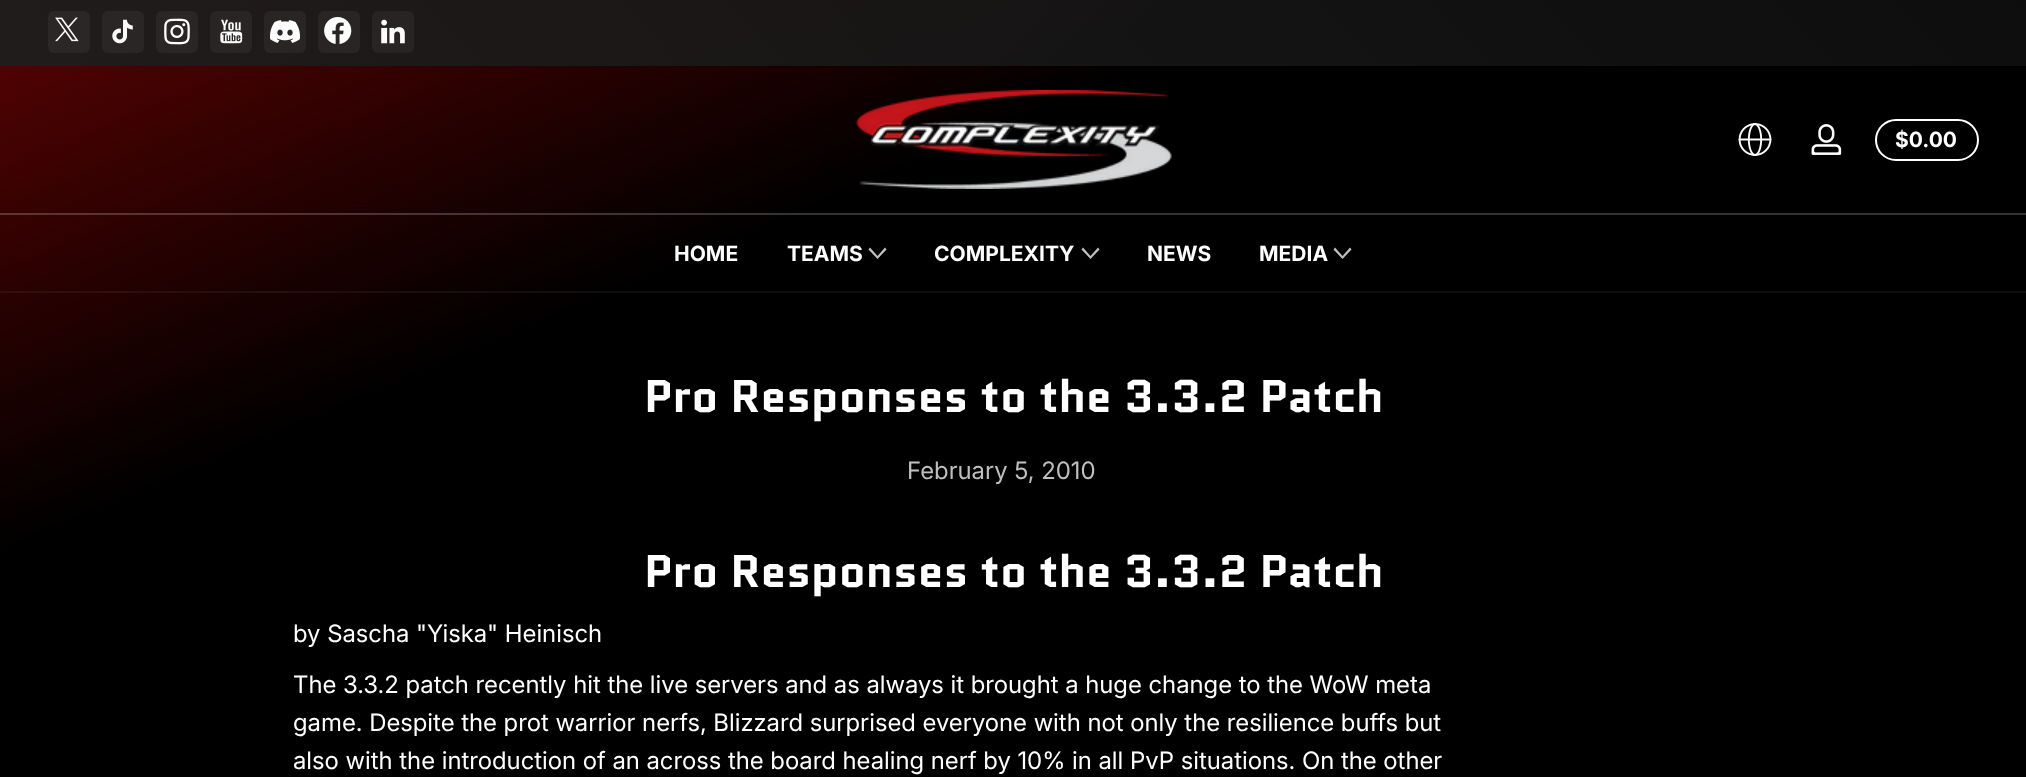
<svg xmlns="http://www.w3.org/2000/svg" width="2026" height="777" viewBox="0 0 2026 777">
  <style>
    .t1 { font: bold 21px Inter; fill: #fff; }
    .t2 { font: bold 45.6px Quantico; fill: #fff; }
    .t3 { font: 24px Inter; fill: #bfbfbf; }
    .t4 { font: 24px Inter; fill: #fff; }
  </style>
  <defs>
    <linearGradient id="g1" gradientUnits="userSpaceOnUse" x1="1308" y1="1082" x2="719" y2="-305"><stop offset="0" stop-color="#000"/><stop offset="0.66" stop-color="#000"/><stop offset="0.96" stop-color="#500202"/></linearGradient>
    <linearGradient id="g2" gradientUnits="userSpaceOnUse" x1="1308" y1="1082" x2="719" y2="-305"><stop offset="0" stop-color="#0d0d0d"/><stop offset="0.66" stop-color="#0d0d0d"/><stop offset="0.96" stop-color="#590f0f"/></linearGradient>
    <linearGradient id="g3" gradientUnits="userSpaceOnUse" x1="1308" y1="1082" x2="719" y2="-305"><stop offset="0" stop-color="#333"/><stop offset="0.66" stop-color="#333"/><stop offset="0.96" stop-color="#733535"/></linearGradient>
    <linearGradient id="g4" gradientUnits="userSpaceOnUse" x1="295" y1="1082" x2="1732" y2="-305"><stop offset="0" stop-color="#222"/><stop offset="1" stop-color="#111" stop-opacity="0.8"/></linearGradient>
  </defs>
  <rect width="100%" height="100%" fill="#fff"/>
  <rect x="0" y="0" width="2026" height="777" fill="url(#g1)"/>
  <rect x="0" y="291" width="2026" height="2" fill="url(#g2)"/>
  <rect x="0" y="213" width="2026" height="2" fill="url(#g3)"/>
  <rect x="0" y="0" width="2026" height="66" fill="url(#g4)"/>
  <rect x="48" y="11" width="42" height="42" rx="6" fill="#2b2727"/>
  <image x="55" y="17" width="24" height="25" href="images/1.png"/>
  <rect x="102" y="11" width="42" height="42" rx="6" fill="#2b2626"/>
  <image x="112" y="19" width="21" height="25" href="images/2.png"/>
  <rect x="156" y="11" width="42" height="42" rx="6" fill="#2b2626"/>
  <image x="164" y="18" width="26" height="27" href="images/3.png"/>
  <rect x="210" y="11" width="42" height="42" rx="6" fill="#2a2525"/>
  <image x="220" y="19" width="23" height="25" href="images/4.png"/>
  <rect x="264" y="11" width="42" height="42" rx="6" fill="#2a2525"/>
  <image x="270" y="20" width="30" height="23" href="images/5.png"/>
  <rect x="318" y="11" width="42" height="42" rx="6" fill="#292525"/>
  <image x="324" y="17" width="28" height="27" href="images/6.png"/>
  <rect x="372" y="11" width="42" height="42" rx="6" fill="#292424"/>
  <image x="381" y="19" width="24" height="25" href="images/7.png"/>
  <image x="856" y="90" width="316" height="99" href="images/8.png"/>
  <image x="1738" y="123" width="34" height="33" href="images/9.png"/>
  <image x="1811" y="124" width="31" height="31" href="images/10.png"/>
  <rect x="1876" y="120" width="102" height="40" rx="20" fill="none" stroke="#fff" stroke-width="2"/>
  <text x="1895" y="147" class="t1">$0.00</text>
  <text x="674" y="261" class="t1">HOME</text>
  <text x="787" y="261" class="t1">TEAMS</text>
  <path d="M877.5 256L885 247.5L886.5 249.5L877.5 259L868.5 249.5L870 247.5Z" fill="#bfbfbf"/>
  <text x="934" y="261" class="t1">COMPLEXITY</text>
  <path d="M1090.5 256L1098 247.5L1099.5 249.5L1090.5 259L1081.5 249.5L1083 247.5Z" fill="#bfbfbf"/>
  <text x="1147" y="261" class="t1">NEWS</text>
  <text x="1259" y="261" class="t1">MEDIA</text>
  <path d="M1342.5 256L1350 247.5L1351.5 249.5L1342.5 259L1333.5 249.5L1335 247.5Z" fill="#bfbfbf"/>
  <text x="644" y="412" class="t2">Pro Responses to the 3.3.2 Patch</text>
  <text x="907" y="479" class="t3">February 5, 2010</text>
  <text x="644" y="587" class="t2">Pro Responses to the 3.3.2 Patch</text>
  <text x="293" y="642" class="t4">by Sascha "Yiska" Heinisch</text>
  <text x="293" y="693" class="t4">The 3.3.2 patch recently hit the live servers and as always it brought a huge change to the WoW meta</text>
  <text x="293" y="731" class="t4">game. Despite the prot warrior nerfs, Blizzard surprised everyone with not only the resilience buffs but</text>
  <text x="293" y="769" class="t4">also with the introduction of an across the board healing nerf by 10% in all PvP situations. On the other</text>
</svg>
